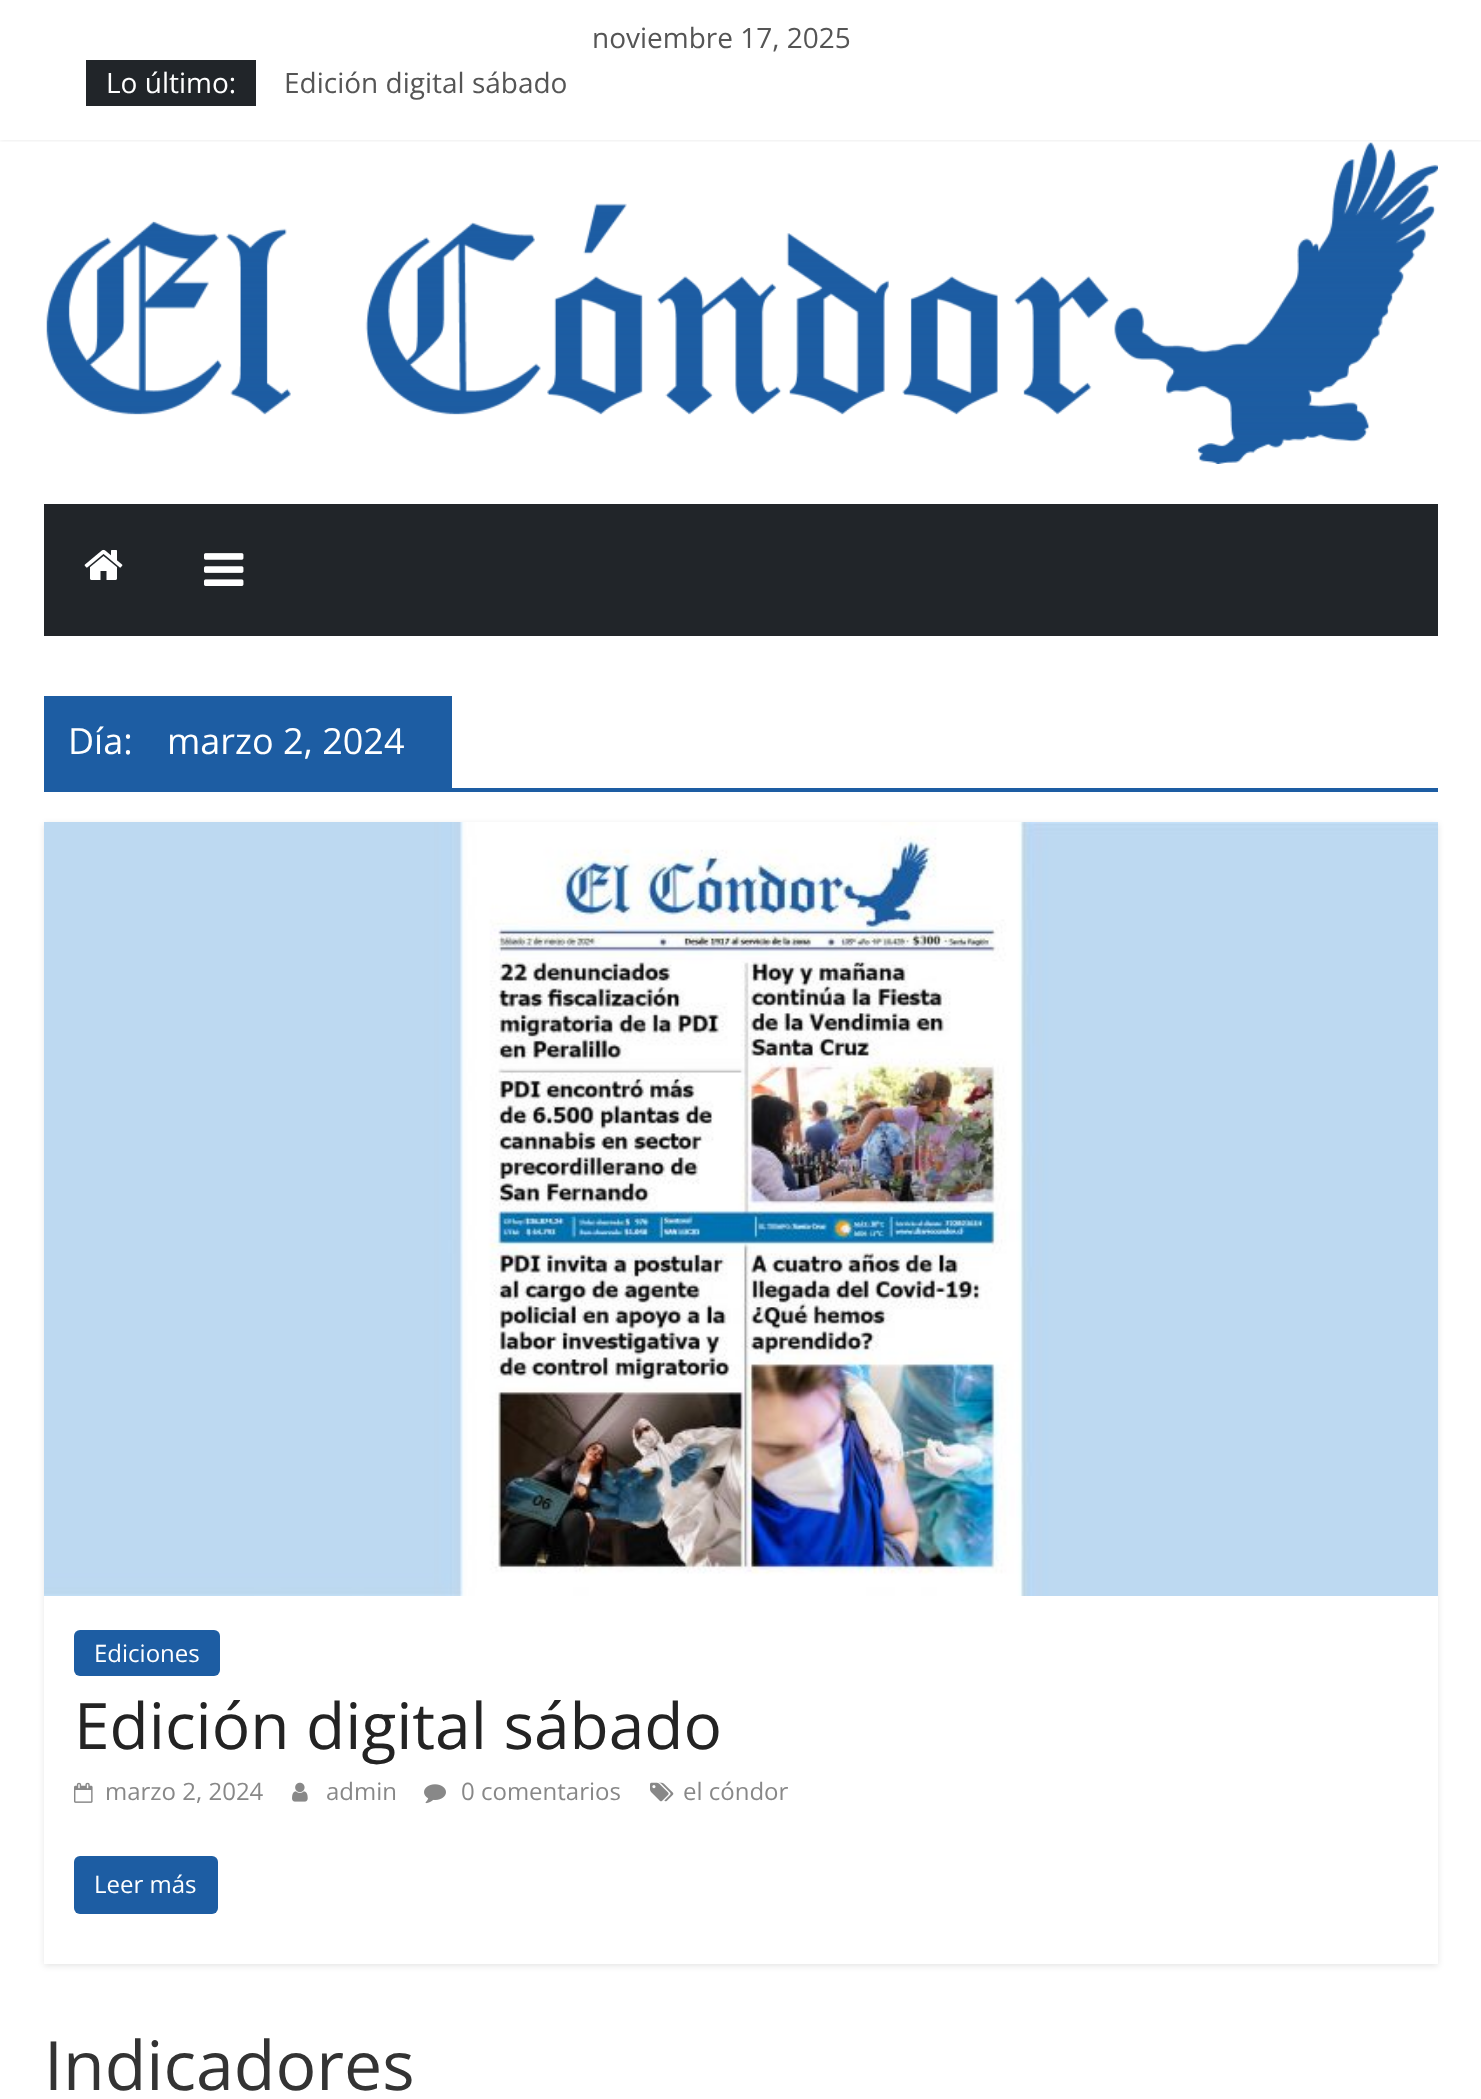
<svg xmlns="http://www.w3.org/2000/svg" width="1481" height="2099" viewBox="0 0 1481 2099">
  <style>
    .t1 { font: 28px Open Sans; fill: #555; }
    .t2 { font: 28px Open Sans; fill: #fff; }
    .t3 { font: 36px Open Sans; fill: #fff; }
    .t4 { font: 24px Open Sans; fill: #fff; }
    .t5 { font: 64px Open Sans; fill: #232323; }
    .t6 { font: 24px Open Sans; fill: #888; }
    .t7 { font: 68px Open Sans; fill: #333; }
  </style>
  <defs>
    <clipPath id="clip1"><rect x="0" y="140" width="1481" height="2"/></clipPath>
    <clipPath id="clip2"><path d="M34 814H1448V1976H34ZM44 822H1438V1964H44Z" clip-rule="evenodd"/></clipPath>
  </defs>
  <rect width="100%" height="100%" fill="#fff"/>
  <g clip-path="url(#clip1)">
    <rect x="0" y="0" width="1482" height="140" fill="#0000001a" filter="blur(2px)"/>
  </g>
  <text x="592" y="48" class="t1">noviembre 17, 2025</text>
  <rect x="86" y="60" width="170" height="46" fill="#212529"/>
  <text x="106" y="93" class="t2">Lo último:</text>
  <text x="284" y="93" class="t1">Edición digital sábado</text>
  <image x="46" y="142" width="1392" height="322" href="images/1.png"/>
  <rect x="44" y="504" width="1394" height="132" fill="#212529"/>
  <image x="84" y="549" width="39" height="31" href="images/2.png"/>
  <image x="204" y="553" width="40" height="33" href="images/3.png"/>
  <rect x="44" y="788" width="1394" height="4" fill="#1d5da3"/>
  <rect x="44" y="696" width="408" height="92" fill="#1d5da3"/>
  <text x="68" y="754" class="t3">Día:</text>
  <text x="167" y="754" class="t3">marzo 2, 2024</text>
  <g clip-path="url(#clip2)">
    <rect x="44" y="824" width="1394" height="1142" fill="#0000001a" filter="blur(3px)"/>
  </g>
  <image x="44" y="822" width="1394" height="774" href="images/4.png"/>
  <rect x="74" y="1630" width="146" height="46" rx="6" fill="#1d5da3"/>
  <text x="94" y="1662" class="t4">Ediciones</text>
  <text x="74" y="1749" class="t5">Edición digital sábado</text>
  <image x="74" y="1782" width="19" height="21" href="images/5.png"/>
  <text x="105" y="1800" class="t6">marzo 2, 2024</text>
  <image x="292" y="1782" width="16" height="20" href="images/6.png"/>
  <text x="326" y="1800" class="t6">admin</text>
  <image x="424" y="1784" width="22" height="20" href="images/7.png"/>
  <text x="461" y="1800" class="t6">0 comentarios</text>
  <image x="650" y="1782" width="24" height="20" href="images/8.png"/>
  <text x="683" y="1800" class="t6">el cóndor</text>
  <rect x="74" y="1856" width="144" height="58" rx="6" fill="#1d5da3"/>
  <text x="94" y="1893" class="t4">Leer más</text>
  <text x="44" y="2090" class="t7">Indicadores</text>
</svg>
